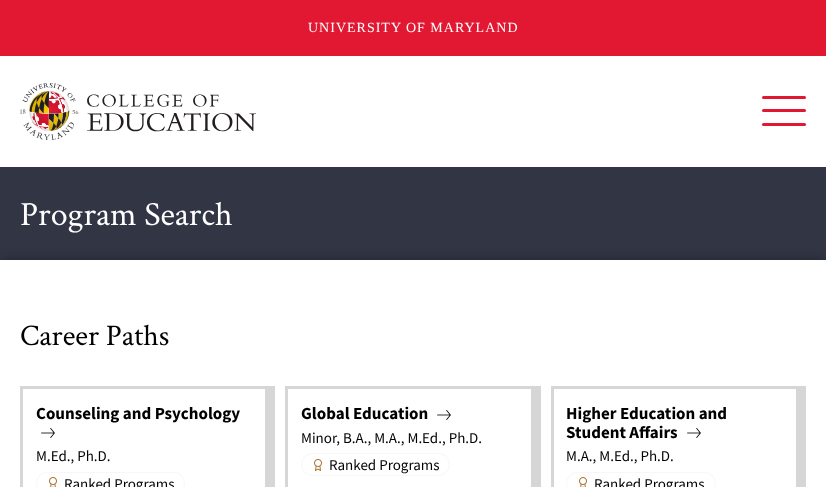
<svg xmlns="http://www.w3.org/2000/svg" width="826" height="487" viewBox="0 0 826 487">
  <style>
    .t1 { font: 14px Liberation Serif; letter-spacing: 1px; fill: #fff; }
    .t2 { font: 34px Crimson Text; fill: #fff; }
    .t3 { font: 30px Crimson Text; fill: #000; }
    .t4 { font: bold 17px Source Sans Pro; fill: #000; }
    .t5 { font: 15px Source Sans Pro; fill: #000; }
  </style>
  <rect width="100%" height="100%" fill="#323544"/>
  <rect x="0" y="0" width="826" height="56" fill="#e21833"/>
  <text x="308" y="32" class="t1">UNIVERSITY OF MARYLAND</text>
  <rect x="0" y="56" width="826" height="111" fill="#fff"/>
  <image x="20" y="83" width="236" height="57" href="images/1.png"/>
  <rect x="762" y="96" width="44" height="3" rx="1.5" fill="#e21833"/>
  <rect x="762" y="109" width="44" height="3" rx="1.5" fill="#e21833"/>
  <rect x="762" y="123" width="44" height="3" rx="1.5" fill="#e21833"/>
  <text x="20" y="225" class="t2">Program Search</text>
  <rect x="0" y="260" width="826" height="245" fill="#0000004d" filter="blur(6px)"/>
  <rect x="0" y="260" width="826" height="227" fill="#fff"/>
  <text x="20" y="345" class="t3">Career Paths</text>
  <rect x="20" y="386" width="245" height="3" fill="#d6d6d6"/>
  <rect x="265" y="386" width="10" height="101" fill="#d6d6d6"/>
  <rect x="20" y="386" width="3" height="101" fill="#d6d6d6"/>
  <text x="36" y="419" class="t4">Counseling and Psychology</text>
  <image x="41" y="428" width="14" height="10" href="images/2.png"/>
  <text x="36" y="461" class="t5">M.Ed., Ph.D.</text>
  <rect x="36.5" y="472.5" width="148" height="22" rx="11" fill="none" stroke="#f7f7f7"/>
  <image x="49" y="477" width="8" height="10" href="images/3.png"/>
  <text x="64" y="489" class="t5">Ranked Programs</text>
  <rect x="285" y="386" width="246" height="3" fill="#d6d6d6"/>
  <rect x="531" y="386" width="10" height="101" fill="#d6d6d6"/>
  <rect x="285" y="386" width="3" height="101" fill="#d6d6d6"/>
  <text x="301" y="419" class="t4">Global Education</text>
  <image x="437" y="410" width="14" height="10" href="images/2.png"/>
  <text x="301" y="443" class="t5">Minor, B.A., M.A., M.Ed., Ph.D.</text>
  <rect x="301.5" y="453.5" width="148" height="22" rx="11" fill="none" stroke="#f7f7f7"/>
  <image x="314" y="459" width="8" height="12" href="images/4.png"/>
  <text x="329" y="470" class="t5">Ranked Programs</text>
  <rect x="551" y="386" width="245" height="3" fill="#d6d6d6"/>
  <rect x="796" y="386" width="10" height="101" fill="#d6d6d6"/>
  <rect x="551" y="386" width="3" height="101" fill="#d6d6d6"/>
  <text x="566" y="419" class="t4">Higher Education and</text>
  <text x="566" y="438" class="t4">Student Affairs</text>
  <image x="687" y="428" width="14" height="10" href="images/2.png"/>
  <text x="566" y="461" class="t5">M.A., M.Ed., Ph.D.</text>
  <rect x="566.5" y="472.5" width="149" height="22" rx="11" fill="none" stroke="#f7f7f7"/>
  <image x="579" y="477" width="8" height="10" href="images/3.png"/>
  <text x="594" y="489" class="t5">Ranked Programs</text>
</svg>
